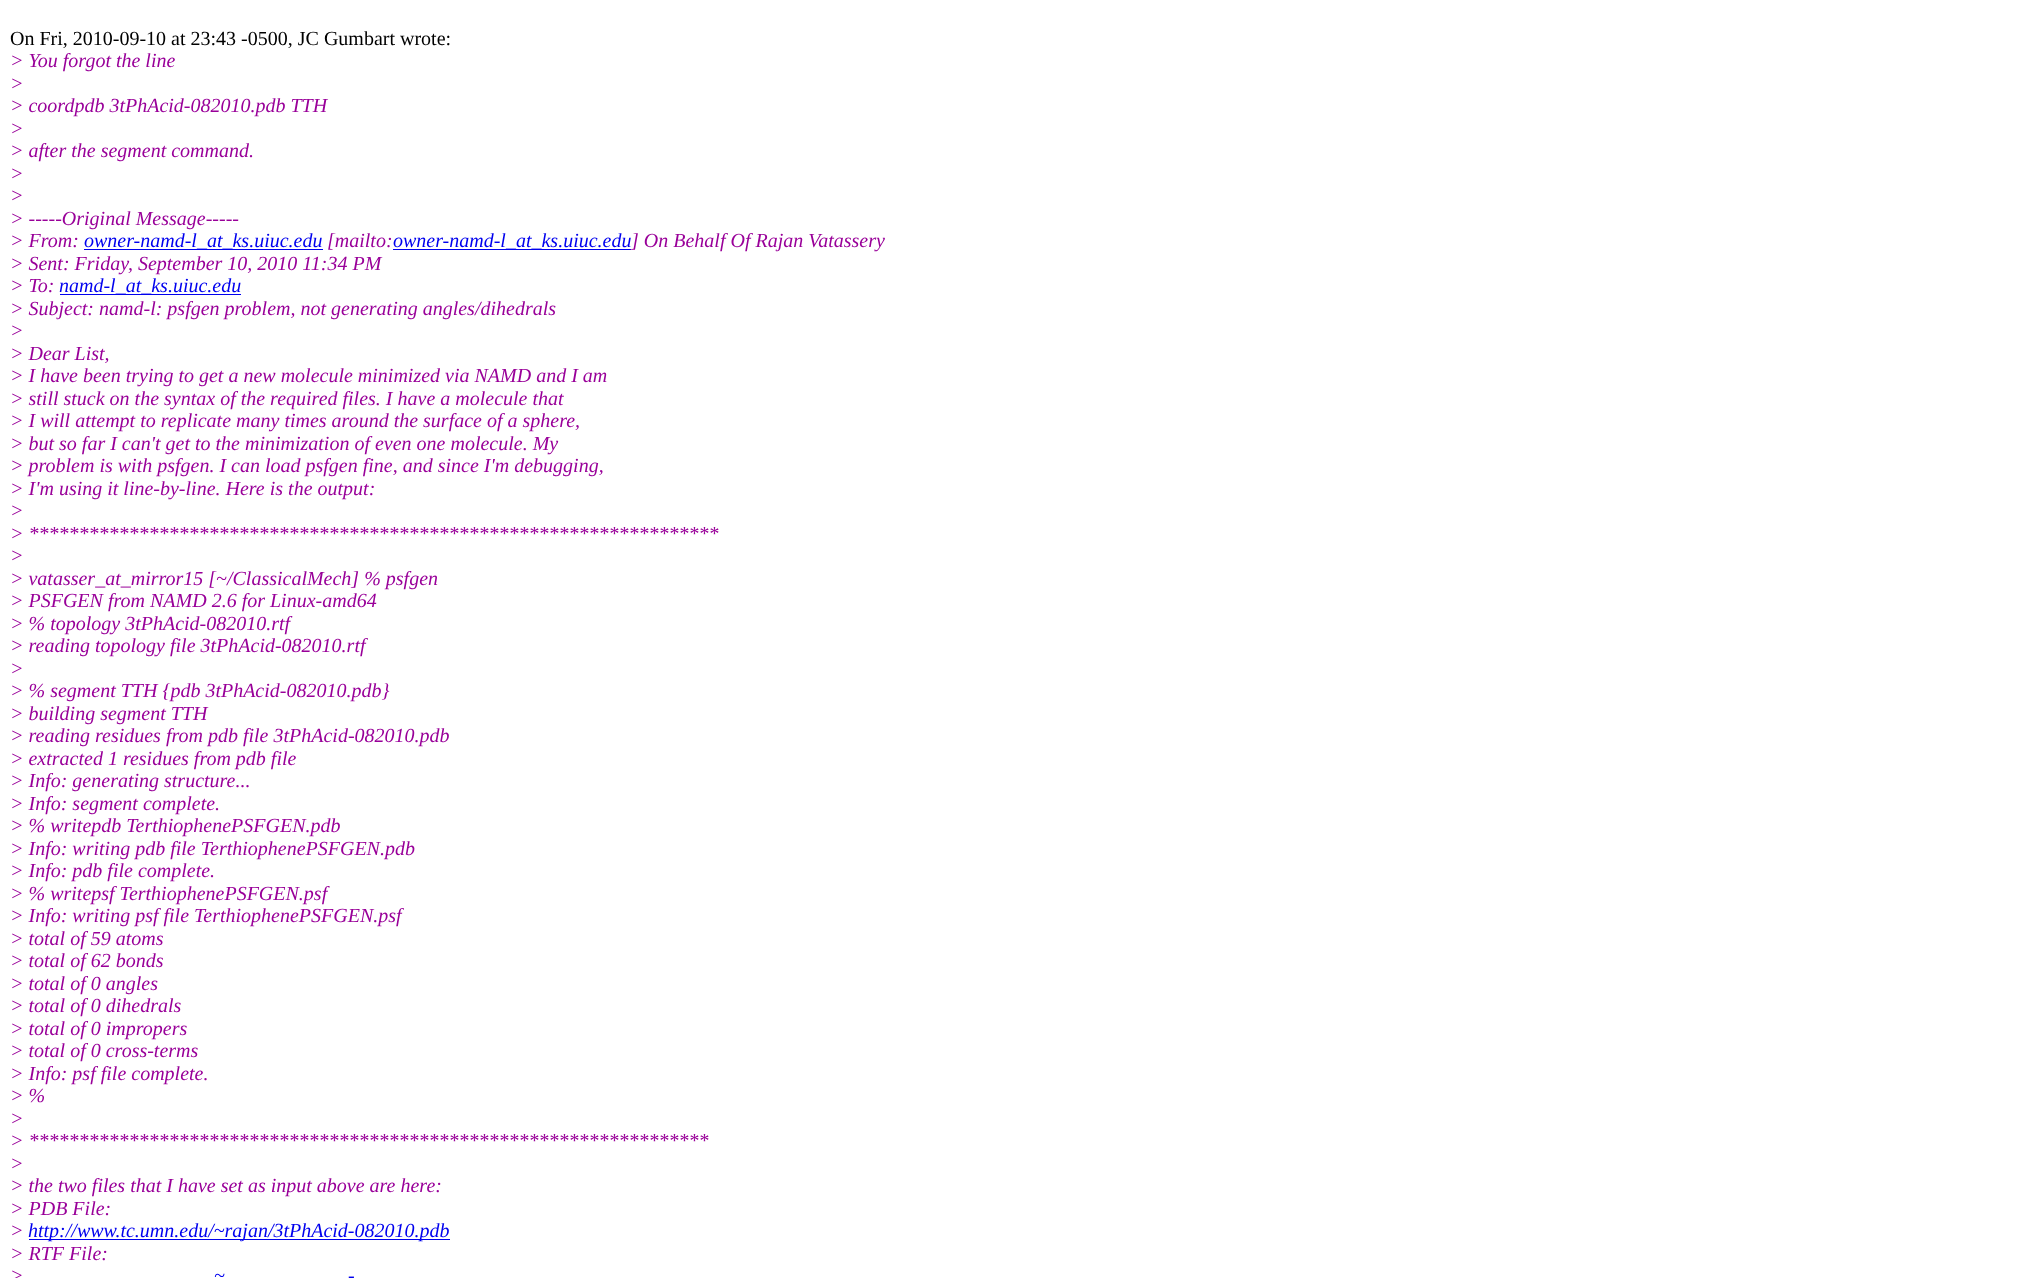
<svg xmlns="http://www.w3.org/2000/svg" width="2039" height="1278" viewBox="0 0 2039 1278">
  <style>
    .t1 { font: 20px Liberation Serif; fill: #000; }
    .t2 { font: italic 20px Liberation Serif; fill: #909; }
    .t3 { font: italic 20px Liberation Serif; fill: #00e; }
  </style>
  <rect width="100%" height="100%" fill="#fff"/>
  <text x="10" y="45" class="t1">On Fri, 2010-09-10 at 23:43 -0500, JC Gumbart wrote:</text>
  <text x="10" y="67" class="t2">&gt; You forgot the line</text>
  <text x="10" y="90" class="t2">&gt;</text>
  <text x="10" y="112" class="t2">&gt; coordpdb 3tPhAcid-082010.pdb TTH</text>
  <text x="10" y="135" class="t2">&gt;</text>
  <text x="10" y="157" class="t2">&gt; after the segment command.</text>
  <text x="10" y="180" class="t2">&gt;</text>
  <text x="10" y="202" class="t2">&gt;</text>
  <text x="10" y="225" class="t2">&gt; -----Original Message-----</text>
  <text x="10" y="247" class="t2">&gt; From:</text>
  <rect x="84" y="249" width="239" height="1" fill="#00e"/>
  <text x="84" y="247" class="t3">owner-namd-l_at_ks.uiuc.edu</text>
  <text x="327" y="247" class="t2">[mailto:</text>
  <rect x="393" y="249" width="238" height="1" fill="#00e"/>
  <text x="393" y="247" class="t3">owner-namd-l_at_ks.uiuc.edu</text>
  <text x="631" y="247" class="t2">] On Behalf Of Rajan Vatassery</text>
  <text x="10" y="270" class="t2">&gt; Sent: Friday, September 10, 2010 11:34 PM</text>
  <text x="10" y="292" class="t2">&gt; To:</text>
  <rect x="60" y="294" width="181" height="1" fill="#00e"/>
  <text x="59" y="292" class="t3">namd-l_at_ks.uiuc.edu</text>
  <text x="10" y="315" class="t2">&gt; Subject: namd-l: psfgen problem, not generating angles/dihedrals</text>
  <text x="10" y="337" class="t2">&gt;</text>
  <text x="10" y="360" class="t2">&gt; Dear List,</text>
  <text x="10" y="382" class="t2">&gt; I have been trying to get a new molecule minimized via NAMD and I am</text>
  <text x="10" y="405" class="t2">&gt; still stuck on the syntax of the required files. I have a molecule that</text>
  <text x="10" y="427" class="t2">&gt; I will attempt to replicate many times around the surface of a sphere,</text>
  <text x="10" y="450" class="t2">&gt; but so far I can't get to the minimization of even one molecule. My</text>
  <text x="10" y="472" class="t2">&gt; problem is with psfgen. I can load psfgen fine, and since I'm debugging,</text>
  <text x="10" y="495" class="t2">&gt; I'm using it line-by-line. Here is the output:</text>
  <text x="10" y="517" class="t2">&gt;</text>
  <text x="10" y="540" class="t2">&gt; *********************************************************************</text>
  <text x="10" y="562" class="t2">&gt;</text>
  <text x="10" y="585" class="t2">&gt; vatasser_at_mirror15 [~/ClassicalMech] % psfgen</text>
  <text x="10" y="607" class="t2">&gt; PSFGEN from NAMD 2.6 for Linux-amd64</text>
  <text x="10" y="630" class="t2">&gt; % topology 3tPhAcid-082010.rtf</text>
  <text x="10" y="652" class="t2">&gt; reading topology file 3tPhAcid-082010.rtf</text>
  <text x="10" y="675" class="t2">&gt;</text>
  <text x="10" y="697" class="t2">&gt; % segment TTH {pdb 3tPhAcid-082010.pdb}</text>
  <text x="10" y="720" class="t2">&gt; building segment TTH</text>
  <text x="10" y="742" class="t2">&gt; reading residues from pdb file 3tPhAcid-082010.pdb</text>
  <text x="10" y="765" class="t2">&gt; extracted 1 residues from pdb file</text>
  <text x="10" y="787" class="t2">&gt; Info: generating structure...</text>
  <text x="10" y="810" class="t2">&gt; Info: segment complete.</text>
  <text x="10" y="832" class="t2">&gt; % writepdb TerthiophenePSFGEN.pdb</text>
  <text x="10" y="855" class="t2">&gt; Info: writing pdb file TerthiophenePSFGEN.pdb</text>
  <text x="10" y="877" class="t2">&gt; Info: pdb file complete.</text>
  <text x="10" y="900" class="t2">&gt; % writepsf TerthiophenePSFGEN.psf</text>
  <text x="10" y="922" class="t2">&gt; Info: writing psf file TerthiophenePSFGEN.psf</text>
  <text x="10" y="945" class="t2">&gt; total of 59 atoms</text>
  <text x="10" y="967" class="t2">&gt; total of 62 bonds</text>
  <text x="10" y="990" class="t2">&gt; total of 0 angles</text>
  <text x="10" y="1012" class="t2">&gt; total of 0 dihedrals</text>
  <text x="10" y="1035" class="t2">&gt; total of 0 impropers</text>
  <text x="10" y="1057" class="t2">&gt; total of 0 cross-terms</text>
  <text x="10" y="1080" class="t2">&gt; Info: psf file complete.</text>
  <text x="10" y="1102" class="t2">&gt; %</text>
  <text x="10" y="1125" class="t2">&gt;</text>
  <text x="10" y="1147" class="t2">&gt; ********************************************************************</text>
  <text x="10" y="1170" class="t2">&gt;</text>
  <text x="10" y="1192" class="t2">&gt; the two files that I have set as input above are here:</text>
  <text x="10" y="1215" class="t2">&gt; PDB File:</text>
  <text x="10" y="1237" class="t2">&gt;</text>
  <rect x="29" y="1239" width="421" height="1" fill="#00e"/>
  <text x="28" y="1237" class="t3">http://www.tc.umn.edu/~rajan/3tPhAcid-082010.pdb</text>
  <text x="10" y="1260" class="t2">&gt; RTF File:</text>
  <text x="10" y="1282" class="t2">&gt;</text>
  <text x="214" y="1282" class="t3">~</text>
  <text x="348" y="1282" class="t3">-</text>
</svg>
